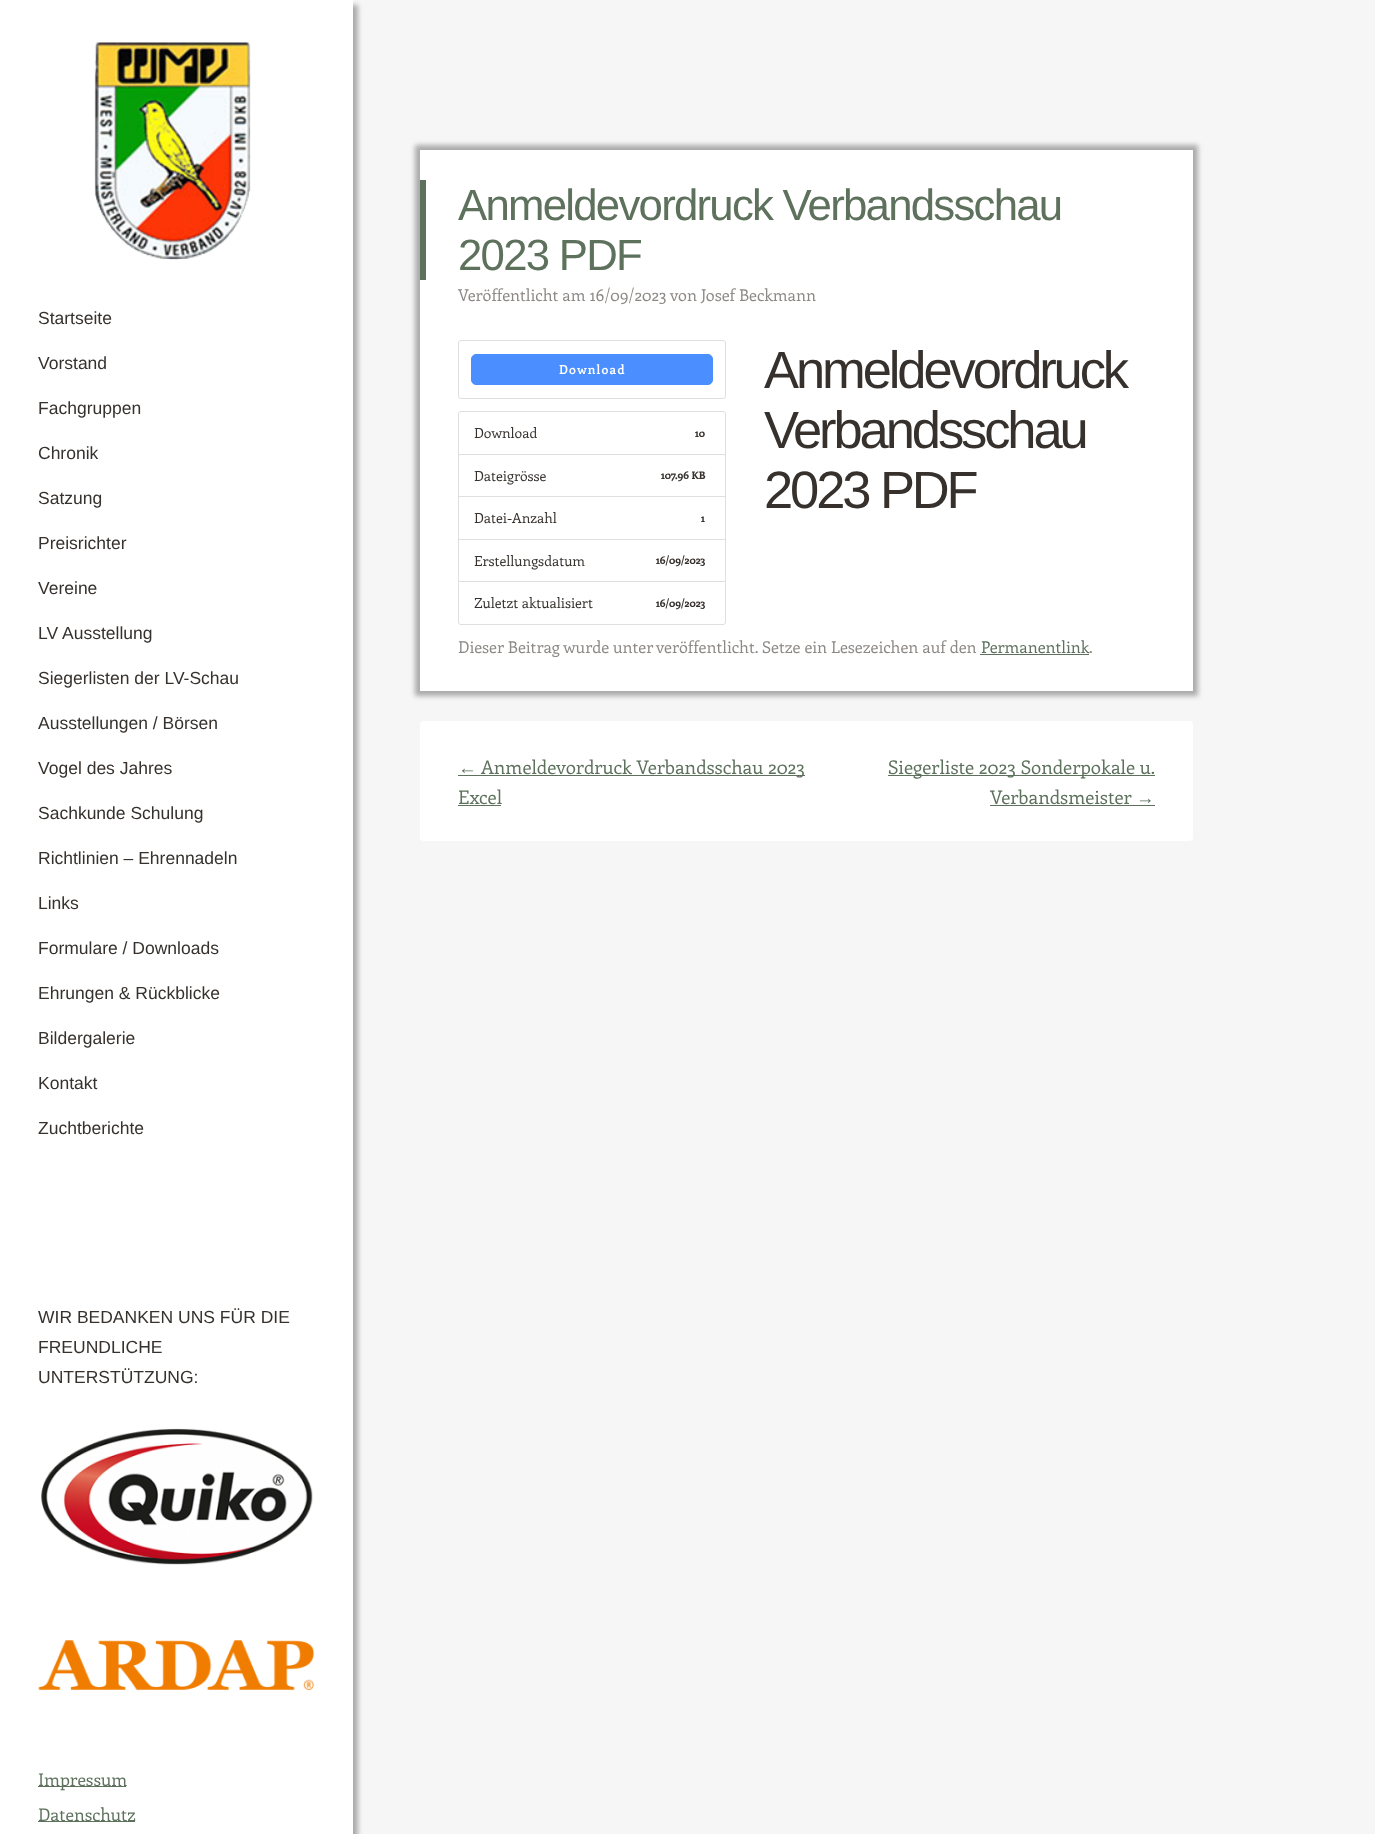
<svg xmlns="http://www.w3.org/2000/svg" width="1375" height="1834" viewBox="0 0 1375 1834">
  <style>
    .t1 { font: 43.75px Liberation Sans; letter-spacing: -1.75px; fill: #5d715d; }
    .t2 { font: 16.25px Enriqueta; fill: #8c8885; }
    .t3 { font: 600 12.5px Enriqueta; letter-spacing: 1.25px; fill: #fff; }
    .t4 { font: 14px Enriqueta; fill: #36312d; }
    .t5 { font: bold 10.5px Enriqueta; fill: #36312d; }
    .t6 { font: 52.5px Liberation Sans; letter-spacing: -3.1px; fill: #36312d; }
    .t7 { font: 16.25px Enriqueta; fill: #5d715d; }
    .t8 { font: 18.75px Liberation Serif; fill: #5d715d; }
    .t9 { font: 18.75px Enriqueta; fill: #5d715d; }
    .t10 { font: 17.5px Liberation Sans; fill: #36312d; }
    .t11 { font: 17.5px Enriqueta; fill: #5d715d; }
  </style>
  <defs>
    <clipPath id="clip1"><path d="M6 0H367V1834H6ZM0 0H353V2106H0Z" clip-rule="evenodd"/></clipPath>
    <clipPath id="clip2"><path d="M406 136H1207V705H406ZM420 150H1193V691H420Z" clip-rule="evenodd"/></clipPath>
  </defs>
  <rect width="100%" height="100%" fill="#f6f6f6"/>
  <g clip-path="url(#clip1)">
    <rect x="15" y="5" width="343" height="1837" fill="#0000004d" filter="blur(2.5px)"/>
  </g>
  <rect x="0" y="0" width="353" height="1834" fill="#fffffff2"/>
  <g clip-path="url(#clip2)">
    <rect x="415" y="145" width="783" height="551" fill="#0000004d" filter="blur(2.5px)"/>
  </g>
  <rect x="420" y="150" width="773" height="541" fill="#fffffff2"/>
  <rect x="420" y="180" width="6" height="100" fill="#5d715d"/>
  <text x="458" y="220" class="t1">Anmeldevordruck Verbandsschau</text>
  <text x="458" y="270" class="t1">2023 PDF</text>
  <text x="458" y="301" class="t2">Veröffentlicht am 16/09/2023</text>
  <text x="670" y="301" class="t2">von Josef Beckmann</text>
  <rect x="458.5" y="340.5" width="267" height="58" rx="2.5" fill="none" stroke="#dfdfdf"/>
  <rect x="471.5" y="354.5" width="241" height="30" rx="4.5" fill="#4a8eff" stroke="#4a8eff"/>
  <text x="559" y="374" class="t3">Download</text>
  <path d="M461 411.5H723C724.5 411.5 725.5 412.5 725.5 414V454.5H458.5V414C458.5 412.5 459.5 411.5 461 411.5Z" fill="none" stroke="#dfdfdf"/>
  <text x="474" y="438" class="t4">Download</text>
  <text x="695" y="437" class="t5">10</text>
  <rect x="458.5" y="454.5" width="267" height="43" fill="none" stroke="#dfdfdf"/>
  <text x="474" y="481" class="t4">Dateigrösse</text>
  <text x="661" y="479" class="t5">107.96 KB</text>
  <rect x="459" y="497" width="266" height="1" fill="#fff"/>
  <rect x="458.5" y="496.5" width="267" height="43" fill="none" stroke="#dfdfdf"/>
  <text x="474" y="523" class="t4">Datei-Anzahl</text>
  <text x="701" y="522" class="t5">1</text>
  <rect x="458.5" y="539.5" width="267" height="43" fill="none" stroke="#dfdfdf"/>
  <text x="474" y="566" class="t4">Erstellungsdatum</text>
  <text x="656" y="564" class="t5">16/09/2023</text>
  <path d="M458.5 581.5H725.5V622C725.5 623.5 724.5 624.5 723 624.5H461C459.5 624.5 458.5 623.5 458.5 622Z" fill="#fff" stroke="#dfdfdf"/>
  <text x="474" y="608" class="t4">Zuletzt aktualisiert</text>
  <text x="656" y="607" class="t5">16/09/2023</text>
  <text x="764" y="388" class="t6">Anmeldevordruck</text>
  <text x="764" y="448" class="t6">Verbandsschau</text>
  <text x="764" y="508" class="t6">2023 PDF</text>
  <text x="458" y="653" class="t2">Dieser Beitrag wurde unter</text>
  <text x="656" y="653" class="t2">veröffentlicht. Setze ein Lesezeichen auf den</text>
  <text x="981" y="653" class="t7">Permanentlink</text>
  <rect x="980" y="654" width="109" height="1" fill="#5d715d"/>
  <text x="1089" y="653" class="t2">.</text>
  <rect x="420" y="721" width="773" height="120" rx="4" fill="#fff"/>
  <text x="458" y="774" class="t8">←</text>
  <rect x="458" y="775" width="347" height="1" fill="#5d715d"/>
  <text x="481" y="774" class="t9">Anmeldevordruck Verbandsschau 2023</text>
  <text x="458" y="804" class="t9">Excel</text>
  <rect x="458" y="805" width="43" height="1" fill="#5d715d"/>
  <rect x="888" y="775" width="267" height="1" fill="#5d715d"/>
  <text x="888" y="774" class="t9">Siegerliste 2023 Sonderpokale u.</text>
  <text x="990" y="804" class="t9">Verbandsmeister</text>
  <text x="1136" y="804" class="t8">→</text>
  <rect x="990" y="805" width="165" height="1" fill="#5d715d"/>
  <image x="94" y="42" width="157" height="218" href="images/1.png"/>
  <text x="38" y="324" class="t10">Startseite</text>
  <text x="38" y="369" class="t10">Vorstand</text>
  <text x="38" y="414" class="t10">Fachgruppen</text>
  <text x="38" y="459" class="t10">Chronik</text>
  <text x="38" y="504" class="t10">Satzung</text>
  <text x="38" y="549" class="t10">Preisrichter</text>
  <text x="38" y="594" class="t10">Vereine</text>
  <text x="38" y="639" class="t10">LV Ausstellung</text>
  <text x="38" y="684" class="t10">Siegerlisten der LV-Schau</text>
  <text x="38" y="729" class="t10">Ausstellungen / Börsen</text>
  <text x="38" y="774" class="t10">Vogel des Jahres</text>
  <text x="38" y="819" class="t10">Sachkunde Schulung</text>
  <text x="38" y="864" class="t10">Richtlinien – Ehrennadeln</text>
  <text x="38" y="909" class="t10">Links</text>
  <text x="38" y="954" class="t10">Formulare / Downloads</text>
  <text x="38" y="999" class="t10">Ehrungen &amp; Rückblicke</text>
  <text x="38" y="1044" class="t10">Bildergalerie</text>
  <text x="38" y="1089" class="t10">Kontakt</text>
  <text x="38" y="1134" class="t10">Zuchtberichte</text>
  <text x="38" y="1323" class="t10">WIR BEDANKEN UNS FÜR DIE</text>
  <text x="38" y="1353" class="t10">FREUNDLICHE</text>
  <text x="38" y="1383" class="t10">UNTERSTÜTZUNG:</text>
  <image x="41" y="1428" width="272" height="137" href="images/2.png"/>
  <image x="38" y="1640" width="277" height="50" href="images/3.png"/>
  <rect x="38" y="1786" width="88" height="1" fill="#5d715d"/>
  <text x="38" y="1786" class="t11">Impressum</text>
  <rect x="38" y="1821" width="97" height="1" fill="#5d715d"/>
  <text x="38" y="1821" class="t11">Datenschutz</text>
</svg>
